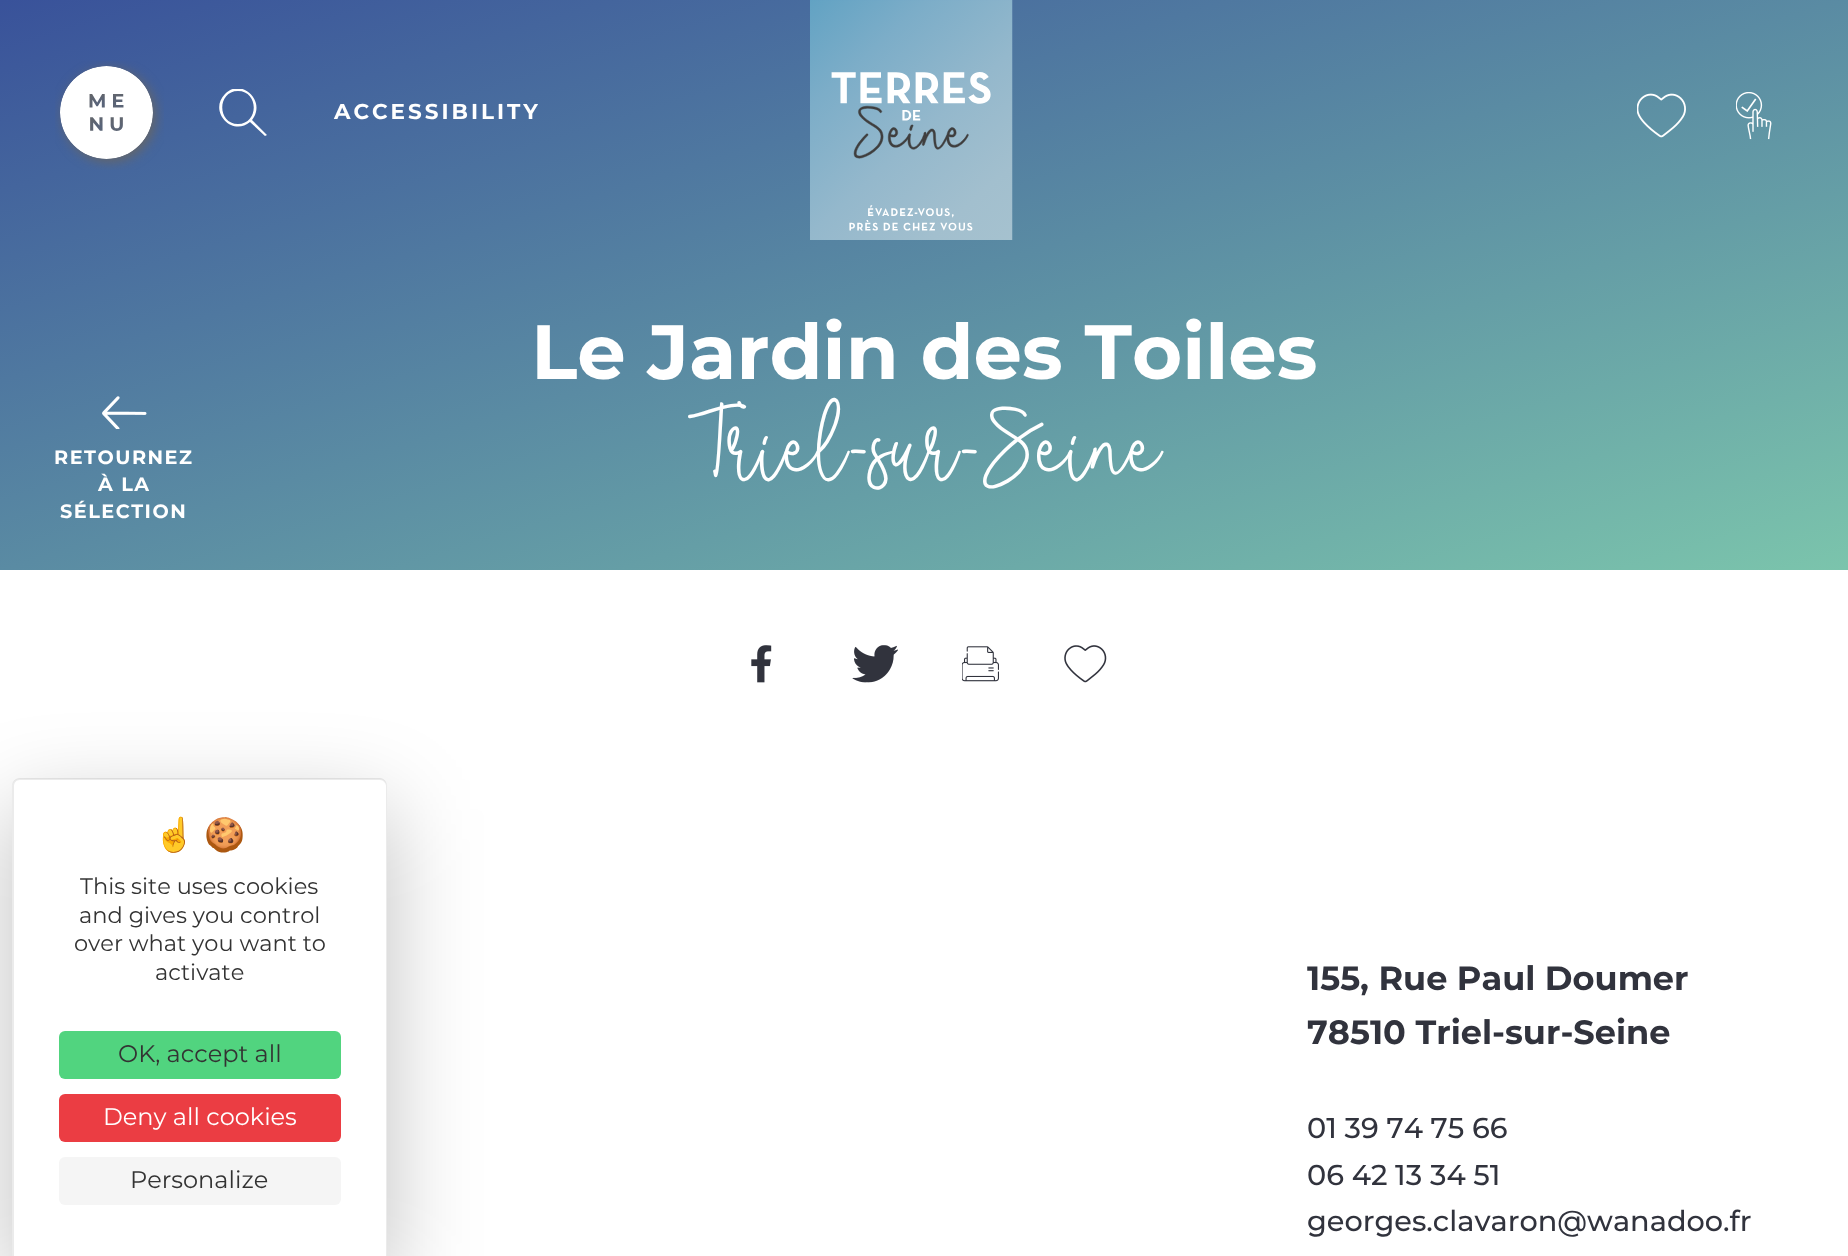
<svg xmlns="http://www.w3.org/2000/svg" width="1848" height="1256" viewBox="0 0 1848 1256">
  <style>*{font-kerning:none!important;font-variant-ligatures:none!important}</style>
  <style>
    .t1 { font: bold 21.5px Montserrat; letter-spacing: 3px; fill: #fff; }
    .t2 { font: bold 19.25px Montserrat; letter-spacing: 1.5px; fill: #fff; }
    .t3 { font: bold 76.75px Montserrat; fill: #fff; }
    .t4 { font: 62.5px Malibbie; fill: #fff; }
    .t5 { font: 33px Noto Color Emoji; fill: #333; }
    .t6 { font: 22.5px Montserrat; fill: #333; }
    .t7 { font: 24px Montserrat; fill: #333; }
    .t8 { font: 24px Montserrat; fill: #fff; }
    .t9 { font: bold 33.6px Montserrat; fill: #31333d; }
    .t10 { font: 500 28.75px Montserrat; fill: #31333d; }
  </style>
  <defs>
    <linearGradient id="g1" gradientUnits="userSpaceOnUse" x1="1085" y1="805" x2="763" y2="-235"><stop offset="0" stop-color="#7bc4ac"/><stop offset="1" stop-color="#39529a"/></linearGradient>
    <clipPath id="clip1"><rect x="219" y="89" width="48" height="48"/></clipPath>
    <clipPath id="clip2"><path d="M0 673H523V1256H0ZM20 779H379C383.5 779 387 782.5 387 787V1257H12V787C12 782.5 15.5 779 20 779Z" clip-rule="evenodd"/></clipPath>
  </defs>
  <rect width="100%" height="100%" fill="#fff"/>
  <rect x="0" y="0" width="1848" height="570" fill="url(#g1)"/>
  <image x="55" y="61" width="109" height="109" href="images/1.png"/>
  <g clip-path="url(#clip1)">
    <path d="M252 120L267 135L265 136L250 122C232 137 208 111 225 94C241 77 267 101 252 120ZM238 124C259 124 259 91 238 91C217 91 217 124 238 124Z" fill="#fff"/>
  </g>
  <text x="334" y="119" class="t1">ACCESSIBILITY</text>
  <image x="810" y="0" width="203" height="240" href="images/2.png"/>
  <image x="1637" y="93" width="49" height="45" href="images/3.png"/>
  <image x="1736" y="92" width="36" height="48" href="images/4.png"/>
  <image x="102" y="396" width="45" height="33" href="images/5.png"/>
  <text x="54" y="464" class="t2">RETOURNEZ</text>
  <text x="98" y="491" class="t2">À LA</text>
  <text x="60" y="518" class="t2">SÉLECTION</text>
  <text x="531" y="379" class="t3">Le Jardin des Toiles</text>
  <text x="688" y="466" class="t4">Triel-sur-Seine</text>
  <g clip-path="url(#clip2)">
    <rect x="12" y="809" width="375" height="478" rx="8" fill="#00000040" filter="blur(45px)"/>
  </g>
  <path d="M20 778H380C384 778 387 782 387 786V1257H12V786C12 782 15 778 20 778ZM20 780H380C383 780 386 783 386 786V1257H14V786C14 783 16 780 20 780Z" fill="#00000014" fill-rule="evenodd"/>
  <text x="154" y="846" class="t5">☝️</text>
  <text x="204" y="846" class="t5">🍪</text>
  <text x="80" y="894" class="t6">This site uses cookies</text>
  <text x="79" y="923" class="t6">and gives you control</text>
  <text x="74" y="951" class="t6">over what you want to</text>
  <text x="155" y="980" class="t6">activate</text>
  <rect x="59" y="1031" width="282" height="48" rx="6" fill="#51d47f"/>
  <text x="118" y="1062" class="t7">OK, accept all</text>
  <rect x="59" y="1094" width="282" height="48" rx="6" fill="#eb3d43"/>
  <text x="103" y="1125" class="t8">Deny all cookies</text>
  <rect x="59" y="1157" width="282" height="48" rx="6" fill="#f5f5f5"/>
  <text x="130" y="1188" class="t7">Personalize</text>
  <image x="751" y="645" width="21" height="38" href="images/6.png"/>
  <image x="852" y="645" width="46" height="38" href="images/7.png"/>
  <image x="962" y="646" width="37" height="36" href="images/8.png"/>
  <image x="1064" y="645" width="43" height="38" href="images/9.png"/>
  <text x="1307" y="990" class="t9">155, Rue Paul Doumer</text>
  <text x="1307" y="1044" class="t9">78510 Triel-sur-Seine</text>
  <text x="1307" y="1138" class="t10">01 39 74 75 66</text>
  <text x="1307" y="1185" class="t10">06 42 13 34 51</text>
  <text x="1307" y="1231" class="t10">georges.clavaron@wanadoo.fr</text>
</svg>
